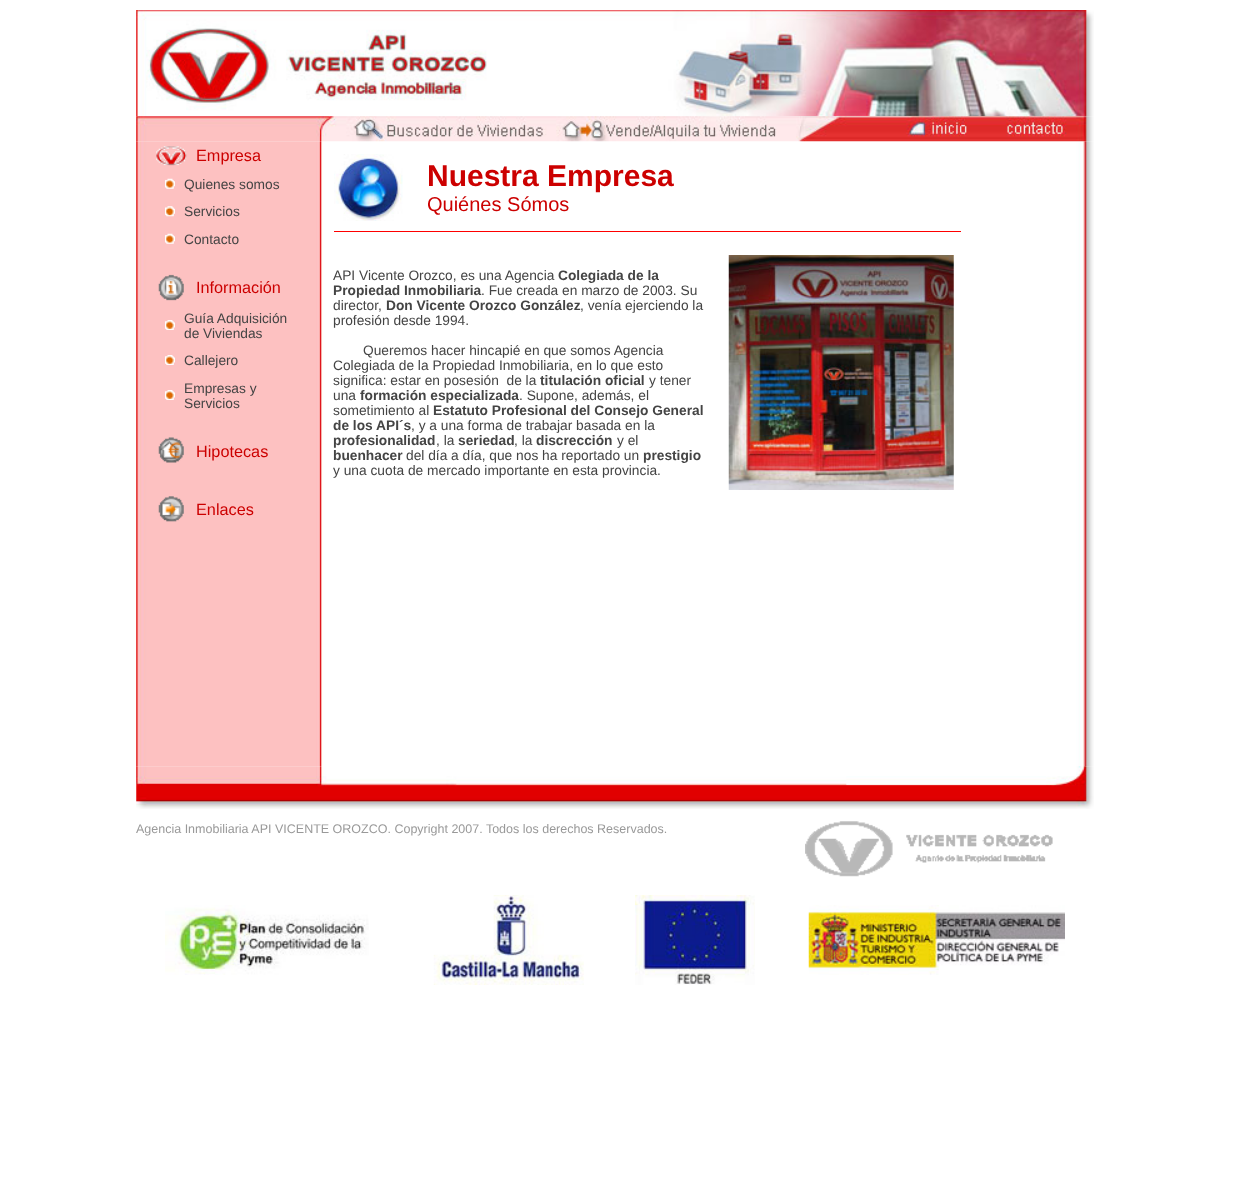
<svg xmlns="http://www.w3.org/2000/svg" width="1234" height="1192" viewBox="0 0 1234 1192">
  <style>
    .t1 { font: 16.25px Liberation Sans; fill: #c00; }
    .t2 { font: 13.75px Liberation Sans; fill: #444; }
    .t3 { font: bold 30px Liberation Sans; fill: #c00; }
    .t4 { font: 20px Liberation Sans; fill: #c00; }
    .t5 { font: bold 13.75px Liberation Sans; fill: #444; }
    .t6 { font: 12.5px Liberation Sans; fill: #999; }
  </style>
  <rect width="100%" height="100%" fill="#fff"/>
  <image x="136" y="10" width="958" height="107" href="images/1.png"/>
  <image x="136" y="141" width="958" height="626" href="images/3.png"/>
  <image x="136" y="116" width="958" height="26" href="images/2.png"/>
  <image x="156" y="146" width="31" height="20" href="images/4.png"/>
  <text x="196" y="161" class="t1">Empresa</text>
  <image x="165" y="178" width="10" height="11" href="images/5.png"/>
  <text x="184" y="189" class="t2">Quienes somos</text>
  <image x="165" y="206" width="10" height="11" href="images/6.png"/>
  <text x="184" y="216" class="t2">Servicios</text>
  <image x="165" y="233" width="10" height="11" href="images/5.png"/>
  <text x="184" y="244" class="t2">Contacto</text>
  <image x="158" y="274" width="26" height="27" href="images/7.png"/>
  <text x="196" y="293" class="t1">Información</text>
  <image x="165" y="320" width="10" height="10" href="images/8.png"/>
  <text x="184" y="323" class="t2">Guía Adquisición</text>
  <text x="184" y="338" class="t2">de Viviendas</text>
  <image x="165" y="355" width="10" height="10" href="images/8.png"/>
  <text x="184" y="365" class="t2">Callejero</text>
  <image x="165" y="390" width="10" height="10" href="images/8.png"/>
  <text x="184" y="393" class="t2">Empresas y</text>
  <text x="184" y="408" class="t2">Servicios</text>
  <image x="158" y="437" width="26" height="26" href="images/9.png"/>
  <text x="196" y="457" class="t1">Hipotecas</text>
  <image x="158" y="496" width="26" height="26" href="images/10.png"/>
  <text x="196" y="515" class="t1">Enlaces</text>
  <image x="334" y="154" width="69" height="67" href="images/11.png"/>
  <text x="427" y="186" class="t3">Nuestra Empresa</text>
  <text x="427" y="211" class="t4">Quiénes Sómos</text>
  <rect x="334" y="231" width="627" height="1" fill="#f00"/>
  <text x="333" y="280" class="t2">API Vicente Orozco, es una Agencia</text>
  <text x="558" y="280" class="t5">Colegiada de la</text>
  <text x="333" y="295" class="t5">Propiedad Inmobiliaria</text>
  <text x="481" y="295" class="t2">. Fue creada en marzo de 2003. Su</text>
  <text x="333" y="310" class="t2">director,</text>
  <text x="386" y="310" class="t5">Don Vicente Orozco González</text>
  <text x="580" y="310" class="t2">, venía ejerciendo la</text>
  <text x="333" y="325" class="t2">profesión desde 1994.</text>
  <text x="363" y="355" class="t2">Queremos hacer hincapié en que somos Agencia</text>
  <text x="333" y="370" class="t2">Colegiada de la Propiedad Inmobiliaria, en lo que esto</text>
  <text x="333" y="385" class="t2" xml:space="preserve">significa: estar en posesión  de la</text>
  <text x="540" y="385" class="t5">titulación oficial</text>
  <text x="649" y="385" class="t2">y tener</text>
  <text x="333" y="400" class="t2">una</text>
  <text x="360" y="400" class="t5">formación especializada</text>
  <text x="519" y="400" class="t2">. Supone, además, el</text>
  <text x="333" y="415" class="t2">sometimiento al</text>
  <text x="433" y="415" class="t5">Estatuto Profesional del Consejo General</text>
  <text x="333" y="430" class="t5">de los API´s</text>
  <text x="411" y="430" class="t2">, y a una forma de trabajar basada en la</text>
  <text x="333" y="445" class="t5">profesionalidad</text>
  <text x="436" y="445" class="t2">, la</text>
  <text x="458" y="445" class="t5">seriedad</text>
  <text x="514" y="445" class="t2">, la</text>
  <text x="536" y="445" class="t5">discrección</text>
  <text x="617" y="445" class="t2">y el</text>
  <text x="333" y="460" class="t5">buenhacer</text>
  <text x="406" y="460" class="t2">del día a día, que nos ha reportado un</text>
  <text x="643" y="460" class="t5">prestigio</text>
  <text x="333" y="475" class="t2">y una cuota de mercado importante en esta provincia.</text>
  <image x="728" y="255" width="226" height="235" href="images/12.png"/>
  <image x="136" y="766" width="958" height="43" href="images/13.png"/>
  <text x="136" y="833" class="t6">Agencia Inmobiliaria API VICENTE OROZCO. Copyright 2007. Todos los derechos Reservados.</text>
  <image x="805" y="821" width="248" height="56" href="images/14.png"/>
  <image x="165" y="905" width="204" height="70" href="images/15.png"/>
  <image x="433" y="895" width="151" height="90" href="images/16.png"/>
  <image x="635" y="895" width="120" height="90" href="images/17.png"/>
  <image x="808" y="905" width="257" height="70" href="images/18.png"/>
</svg>
